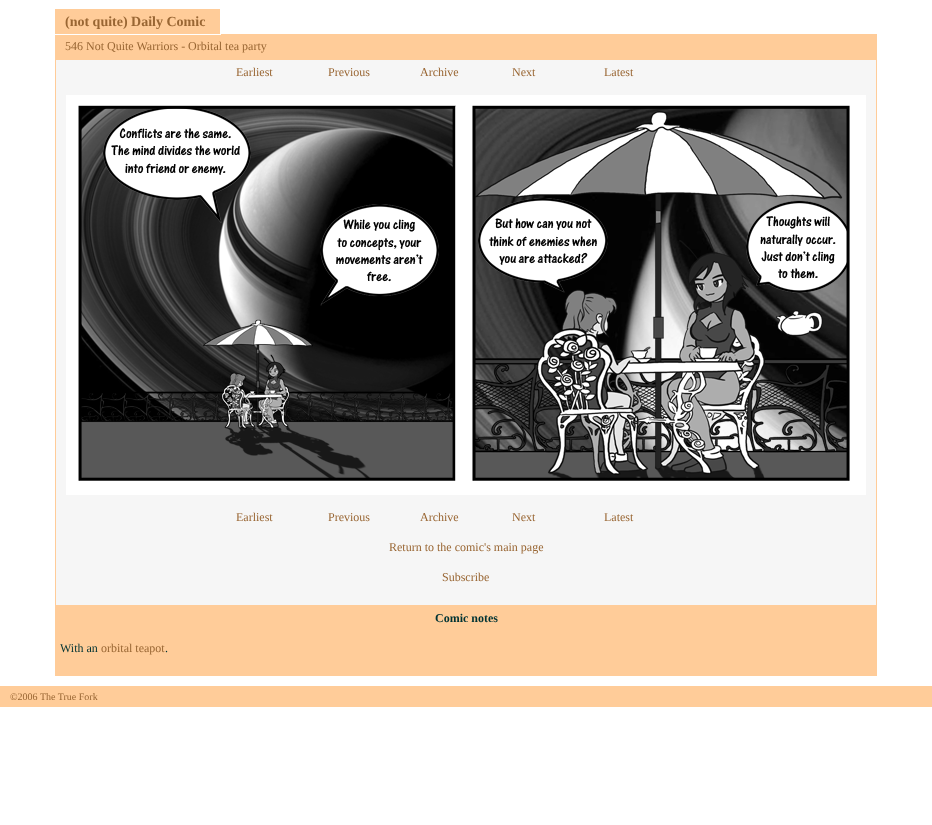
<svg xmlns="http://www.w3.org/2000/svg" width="932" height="825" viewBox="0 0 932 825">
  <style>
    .t1 { font: bold 14px Liberation Serif; fill: #963; }
    .t2 { font: 12px Liberation Serif; fill: #963; }
    .t3 { font: bold 12px Liberation Serif; fill: #033; }
    .t4 { font: 12px Liberation Serif; fill: #033; }
    .t5 { font: 10px Liberation Serif; fill: #963; }
  </style>
  <rect width="100%" height="100%" fill="#fff"/>
  <rect x="55" y="9" width="165" height="25" fill="#fc9"/>
  <text x="65" y="26" class="t1">(not quite) Daily Comic</text>
  <rect x="55" y="34" width="822" height="25" fill="#fc9"/>
  <rect x="55" y="34" width="166" height="1" fill="#fff"/>
  <text x="65" y="50" class="t2">546 Not Quite Warriors - Orbital tea party</text>
  <rect x="55.5" y="59.5" width="821" height="546" fill="#f6f6f6" stroke="#fc9"/>
  <text x="236" y="76" class="t2">Earliest</text>
  <text x="328" y="76" class="t2">Previous</text>
  <text x="420" y="76" class="t2">Archive</text>
  <text x="512" y="76" class="t2">Next</text>
  <text x="604" y="76" class="t2">Latest</text>
  <image x="66" y="95" width="800" height="400" href="images/1.png"/>
  <text x="236" y="521" class="t2">Earliest</text>
  <text x="328" y="521" class="t2">Previous</text>
  <text x="420" y="521" class="t2">Archive</text>
  <text x="512" y="521" class="t2">Next</text>
  <text x="604" y="521" class="t2">Latest</text>
  <text x="389" y="551" class="t2">Return to the comic's main page</text>
  <text x="442" y="581" class="t2">Subscribe</text>
  <rect x="55" y="606" width="822" height="70" fill="#fc9"/>
  <text x="435" y="622" class="t3">Comic notes</text>
  <text x="60" y="652" class="t4">With an</text>
  <text x="101" y="652" class="t2">orbital teapot</text>
  <text x="165" y="652" class="t4">.</text>
  <rect x="0" y="686" width="932" height="21" fill="#fc9"/>
  <text x="10" y="700" class="t5">©2006 The True Fork</text>
</svg>
